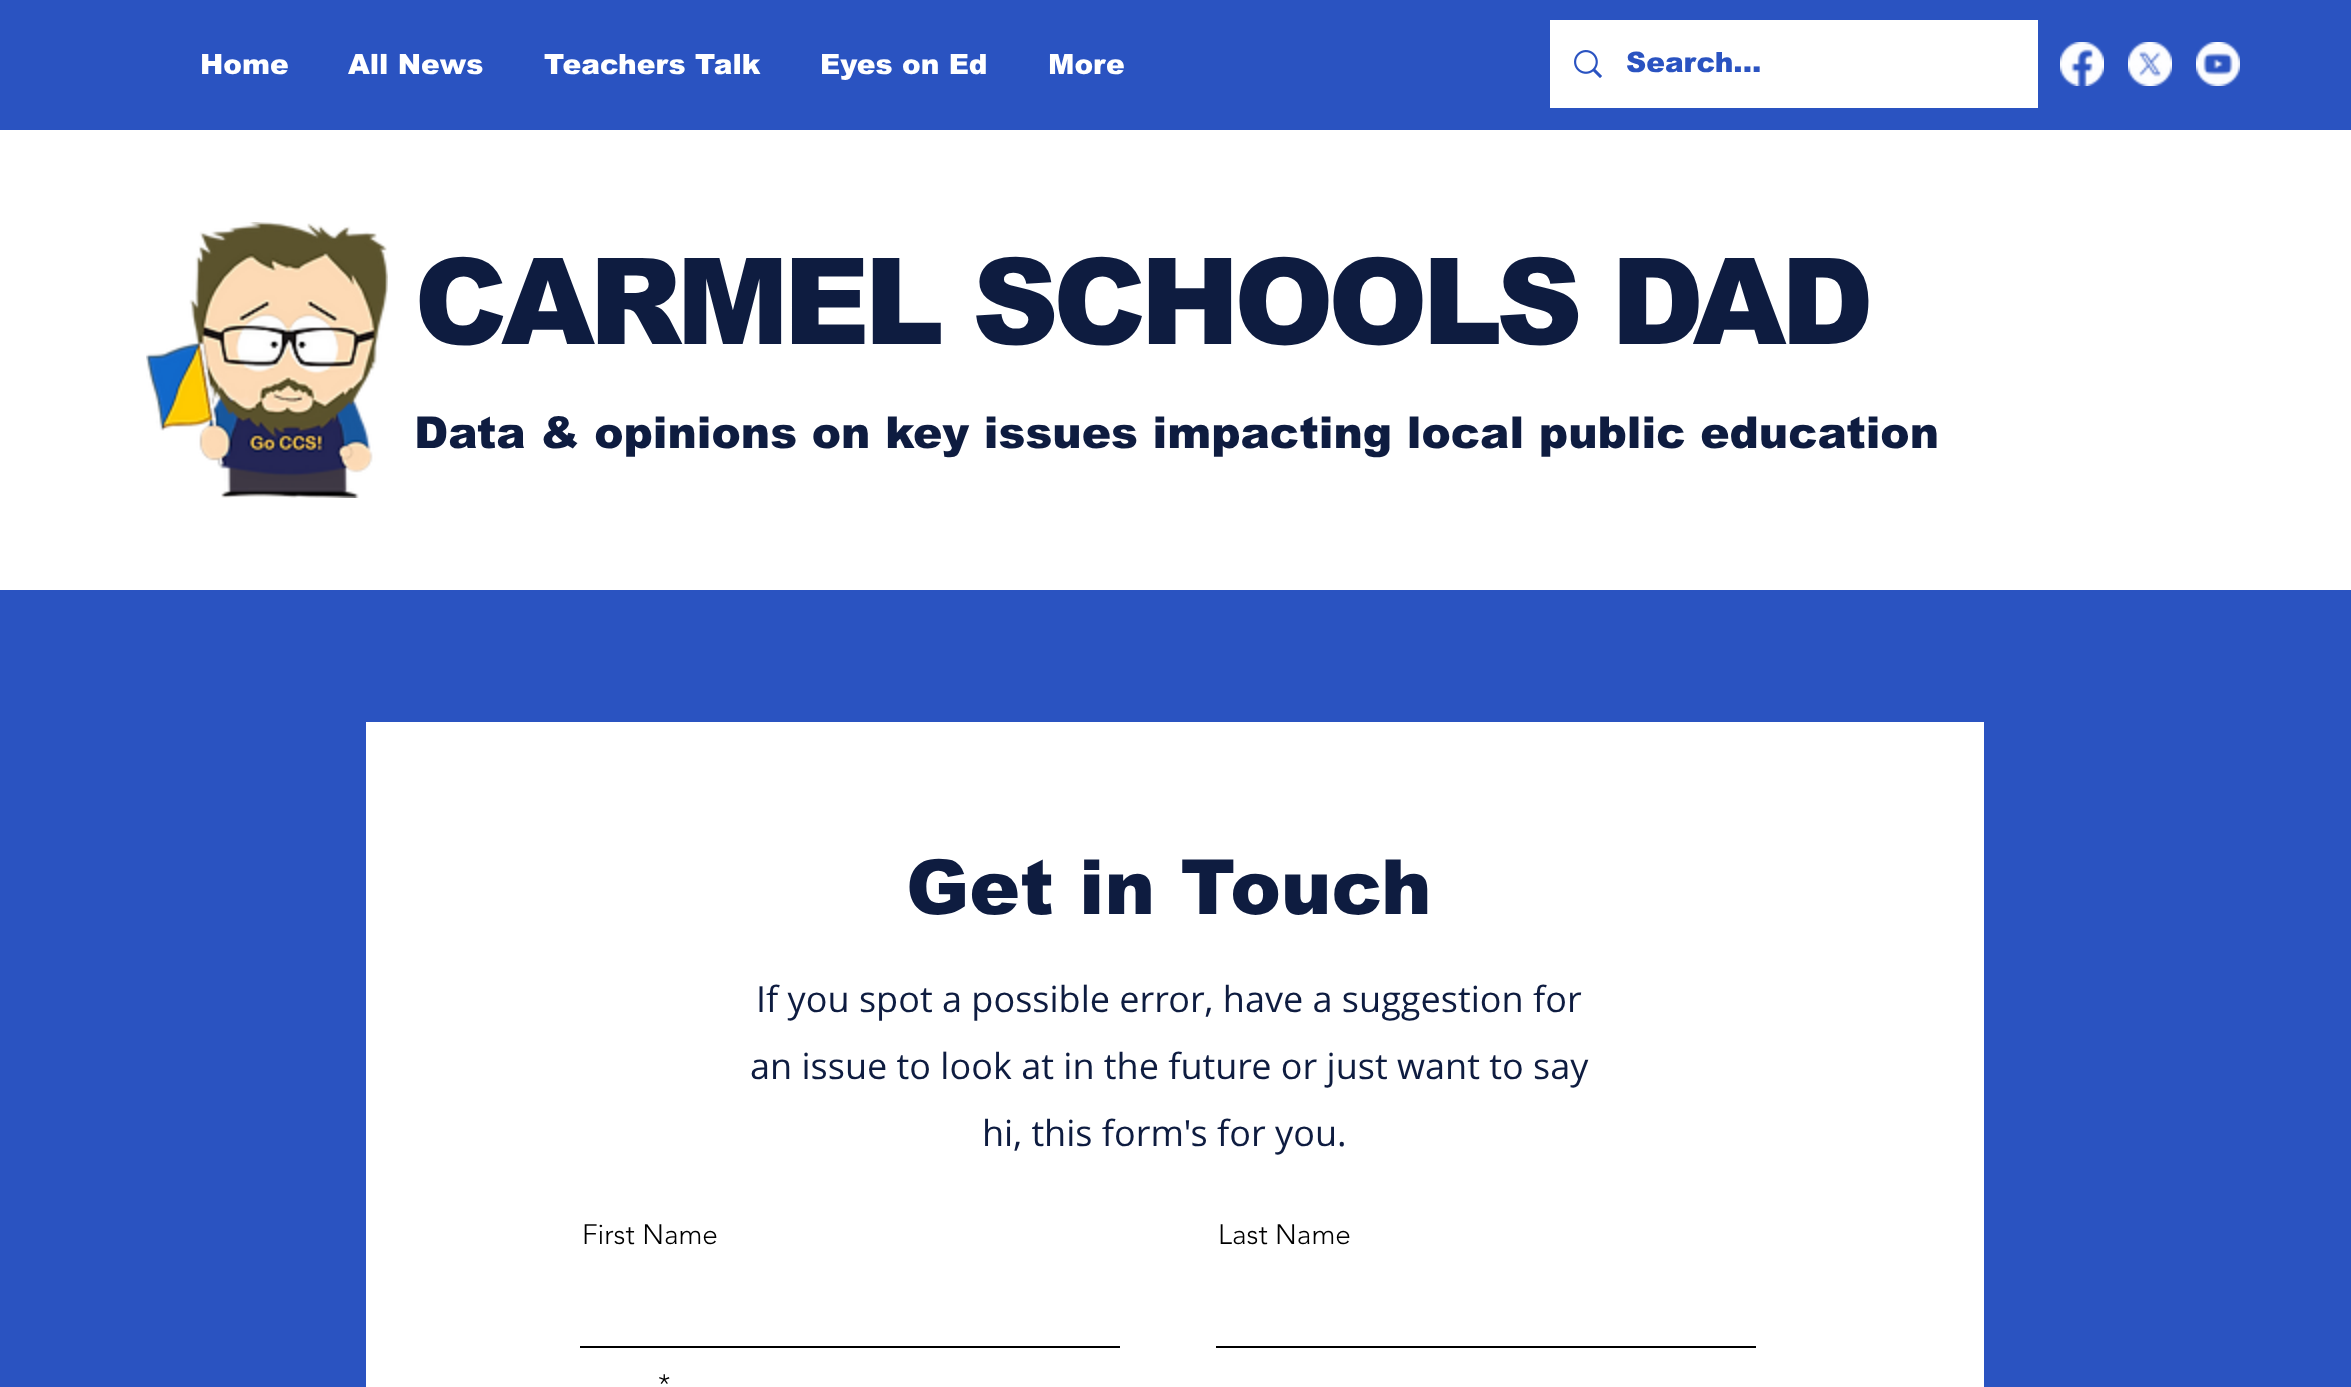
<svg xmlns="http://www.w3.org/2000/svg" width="2351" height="1387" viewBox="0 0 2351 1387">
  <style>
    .t1 { font: 900 28px arial; fill: #fff; }
    .t2 { font: 900 28px arial; fill: #2a53c1; }
    .t3 { font: 900 120px arial; letter-spacing: -6px; fill: #0e1c40; }
    .t4 { font: 900 44px arial; fill: #0e1c40; }
    .t5 { font: 900 76px arial; fill: #0e1c40; }
    .t6 { font: 36px Open Sans; fill: #0e1c40; }
    .t7 { font: 300 28px 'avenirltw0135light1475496'; fill: #000; }
  </style>
  <rect width="100%" height="100%" fill="#fff"/>
  <rect x="0" y="0" width="2351" height="130" fill="#2a53c1"/>
  <text x="200" y="74" class="t1">Home</text>
  <text x="348" y="74" class="t1">All News</text>
  <text x="544" y="74" class="t1">Teachers Talk</text>
  <text x="820" y="74" class="t1">Eyes on Ed</text>
  <text x="1048" y="74" class="t1">More</text>
  <rect x="1550" y="20" width="488" height="88" fill="#fff"/>
  <image x="1574" y="50" width="28" height="28" href="images/1.png"/>
  <text x="1626" y="72" class="t2">Search...</text>
  <image x="2060" y="42" width="44" height="44" href="images/2.png"/>
  <image x="2128" y="42" width="44" height="44" href="images/3.png"/>
  <image x="2196" y="42" width="44" height="44" href="images/4.png"/>
  <image x="146" y="222" width="242" height="276" href="images/5.png"/>
  <text x="414" y="344" class="t3">CARMEL SCHOOLS DAD</text>
  <text x="414" y="448" class="t4">Data &amp; opinions on key issues impacting local public education</text>
  <rect x="0" y="590" width="2351" height="797" fill="#2a53c1"/>
  <rect x="366" y="722" width="1618" height="665" fill="#fff"/>
  <text x="906" y="914" class="t5">Get in Touch</text>
  <text x="756" y="1012" class="t6">If you spot a possible error, have a suggestion for</text>
  <text x="750" y="1079" class="t6">an issue to look at in the future or just want to say</text>
  <text x="982" y="1146" class="t6">hi, this form's for you.</text>
  <text x="582" y="1244" class="t7">First Name</text>
  <rect x="580" y="1346" width="540" height="2" fill="#000"/>
  <text x="1218" y="1244" class="t7">Last Name</text>
  <rect x="1216" y="1346" width="540" height="2" fill="#000"/>
  <text x="658" y="1394" class="t7">*</text>
</svg>
